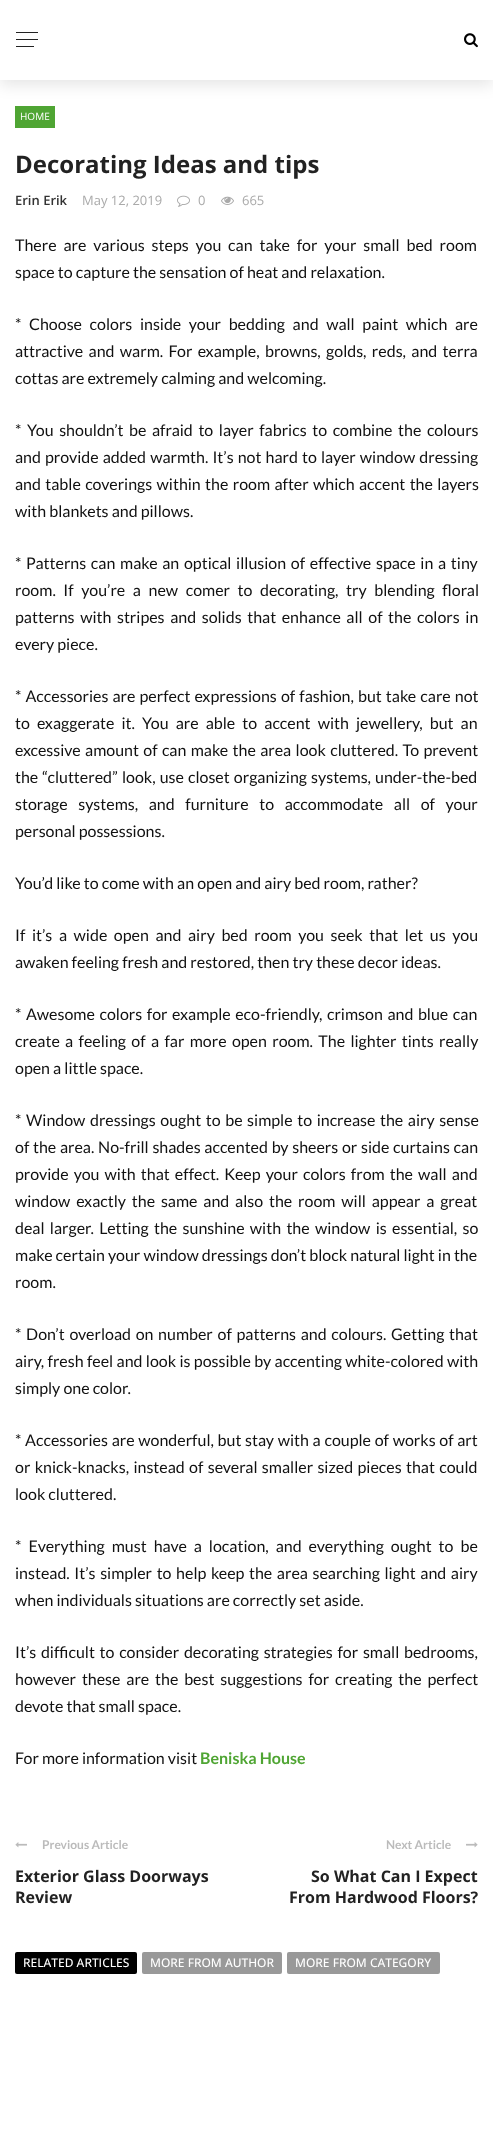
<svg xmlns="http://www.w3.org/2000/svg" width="493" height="2144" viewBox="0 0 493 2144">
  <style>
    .t1 { font: 10px Open Sans; fill: #fff; }
    .t2 { font: bold 24px Open Sans; fill: #222; }
    .t3 { font: 600 13px Open Sans; fill: #333; }
    .t4 { font: 13px Open Sans; fill: #aaa; }
    .t5 { font: 16px Lato; fill: #111; }
    .t6 { font: bold 16px Lato; fill: #4fa533; }
    .t7 { font: bold 12px Lato; fill: #bbb; }
    .t8 { font: bold 16px Open Sans; fill: #222; }
    .t9 { font: 500 12px Open Sans; fill: #fff; }
  </style>
  <rect width="100%" height="100%" fill="#fff"/>
  <rect x="15" y="106" width="40" height="22" fill="#4fa533"/>
  <rect x="0" y="5" width="493" height="80" fill="#0000001a" filter="blur(7.5px)"/>
  <rect x="0" y="0" width="493" height="80" fill="#fff"/>
  <rect x="16" y="32" width="22" height="1" fill="#222"/>
  <rect x="16" y="39" width="22" height="1" fill="#222"/>
  <rect x="16" y="46" width="18" height="1" fill="#222"/>
  <image x="464" y="33" width="14" height="15" href="images/1.png"/>
  <text x="20" y="120" class="t1">HOME</text>
  <text x="15" y="173" class="t2">Decorating Ideas and tips</text>
  <text x="15" y="205" class="t3">Erin Erik</text>
  <text x="82" y="205" class="t4">May 12, 2019</text>
  <image x="177" y="195" width="13" height="12" href="images/2.png"/>
  <text x="198" y="205" class="t4">0</text>
  <image x="221" y="196" width="13" height="9" href="images/3.png"/>
  <text x="242" y="205" class="t4">665</text>
  <text x="15" y="251" word-spacing="3.75" class="t5">There are various steps you can take for your small bed room</text>
  <text x="15" y="278" class="t5">space to capture the sensation of heat and relaxation.</text>
  <text x="15" y="330" word-spacing="4.5" class="t5">* Choose colors inside your bedding and wall paint which are</text>
  <text x="15" y="357" word-spacing="2.25" class="t5">attractive and warm. For example, browns, golds, reds, and terra</text>
  <text x="15" y="384" class="t5">cottas are extremely calming and welcoming.</text>
  <text x="15" y="436" word-spacing="2.5" class="t5">* You shouldn’t be afraid to layer fabrics to combine the colours</text>
  <text x="15" y="463" word-spacing="1" class="t5">and provide added warmth. It’s not hard to layer window dressing</text>
  <text x="15" y="490" word-spacing="1.25" class="t5">and table coverings within the room after which accent the layers</text>
  <text x="15" y="517" class="t5">with blankets and pillows.</text>
  <text x="15" y="569" word-spacing="1.6" class="t5">* Patterns can make an optical illusion of effective space in a tiny</text>
  <text x="15" y="596" word-spacing="4.5" class="t5">room. If you’re a new comer to decorating, try blending floral</text>
  <text x="15" y="623" word-spacing="2.5" class="t5">patterns with stripes and solids that enhance all of the colors in</text>
  <text x="15" y="650" class="t5">every piece.</text>
  <text x="15" y="702" word-spacing="1" class="t5">* Accessories are perfect expressions of fashion, but take care not</text>
  <text x="15" y="729" word-spacing="4" class="t5">to exaggerate it. You are able to accent with jewellery, but an</text>
  <text x="15" y="756" word-spacing="1.25" class="t5">excessive amount of can make the area look cluttered. To prevent</text>
  <text x="15" y="783" word-spacing="1" class="t5">the “cluttered” look, use closet organizing systems, under-the-bed</text>
  <text x="15" y="810" word-spacing="7.5" class="t5">storage systems, and furniture to accommodate all of your</text>
  <text x="15" y="837" class="t5">personal possessions.</text>
  <text x="15" y="889" class="t5">You’d like to come with an open and airy bed room, rather?</text>
  <text x="15" y="941" word-spacing="3.5" class="t5">If it’s a wide open and airy bed room you seek that let us you</text>
  <text x="15" y="968" class="t5">awaken feeling fresh and restored, then try these decor ideas.</text>
  <text x="15" y="1020" word-spacing="1.5" class="t5">* Awesome colors for example eco-friendly, crimson and blue can</text>
  <text x="15" y="1047" word-spacing="2.25" class="t5">create a feeling of a far more open room. The lighter tints really</text>
  <text x="15" y="1074" class="t5">open a little space.</text>
  <text x="15" y="1126" word-spacing="1.5" class="t5">* Window dressings ought to be simple to increase the airy sense</text>
  <text x="15" y="1153" word-spacing="0.6" class="t5">of the area. No-frill shades accented by sheers or side curtains can</text>
  <text x="15" y="1180" word-spacing="2" class="t5">provide you with that effect. Keep your colors from the wall and</text>
  <text x="15" y="1207" word-spacing="2.75" class="t5">window exactly the same and also the room will appear a great</text>
  <text x="15" y="1234" word-spacing="2.25" class="t5">deal larger. Letting the sunshine with the window is essential, so</text>
  <text x="15" y="1261" class="t5">make certain your window dressings don’t block natural light in the</text>
  <text x="15" y="1288" class="t5">room.</text>
  <text x="15" y="1340" word-spacing="1.6" class="t5">* Don’t overload on number of patterns and colours. Getting that</text>
  <text x="15" y="1367" word-spacing="0.25" class="t5">airy, fresh feel and look is possible by accenting white-colored with</text>
  <text x="15" y="1394" class="t5">simply one color.</text>
  <text x="15" y="1446" word-spacing="0.6" class="t5">* Accessories are wonderful, but stay with a couple of works of art</text>
  <text x="15" y="1473" word-spacing="1.25" class="t5">or knick-knacks, instead of several smaller sized pieces that could</text>
  <text x="15" y="1500" class="t5">look cluttered.</text>
  <text x="15" y="1552" word-spacing="3.9" class="t5">* Everything must have a location, and everything ought to be</text>
  <text x="15" y="1579" word-spacing="1.5" class="t5">instead. It’s simpler to help keep the area searching light and airy</text>
  <text x="15" y="1606" class="t5">when individuals situations are correctly set aside.</text>
  <text x="15" y="1658" word-spacing="1.6" class="t5">It’s difficult to consider decorating strategies for small bedrooms,</text>
  <text x="15" y="1685" word-spacing="2.75" class="t5">however these are the best suggestions for creating the perfect</text>
  <text x="15" y="1712" class="t5">devote that small space.</text>
  <text x="15" y="1764" class="t5">For more information visit</text>
  <text x="200" y="1764" class="t6">Beniska House</text>
  <image x="15" y="1842" width="12" height="6" href="images/4.png"/>
  <text x="42" y="1849" class="t7">Previous Article</text>
  <text x="15" y="1882" class="t8">Exterior Glass Doorways</text>
  <text x="15" y="1903" class="t8">Review</text>
  <text x="386" y="1849" class="t7">Next Article</text>
  <image x="466" y="1842" width="12" height="6" href="images/5.png"/>
  <text x="311" y="1882" class="t8">So What Can I Expect</text>
  <text x="289" y="1903" class="t8">From Hardwood Floors?</text>
  <rect x="15" y="1952" width="122" height="22" rx="2" fill="#000"/>
  <text x="23" y="1967" class="t9">RELATED ARTICLES</text>
  <rect x="142" y="1952" width="140" height="22" rx="2" fill="#999"/>
  <text x="150" y="1967" class="t9">MORE FROM AUTHOR</text>
  <rect x="287" y="1952" width="153" height="22" rx="2" fill="#999"/>
  <text x="295" y="1967" class="t9">MORE FROM CATEGORY</text>
</svg>
